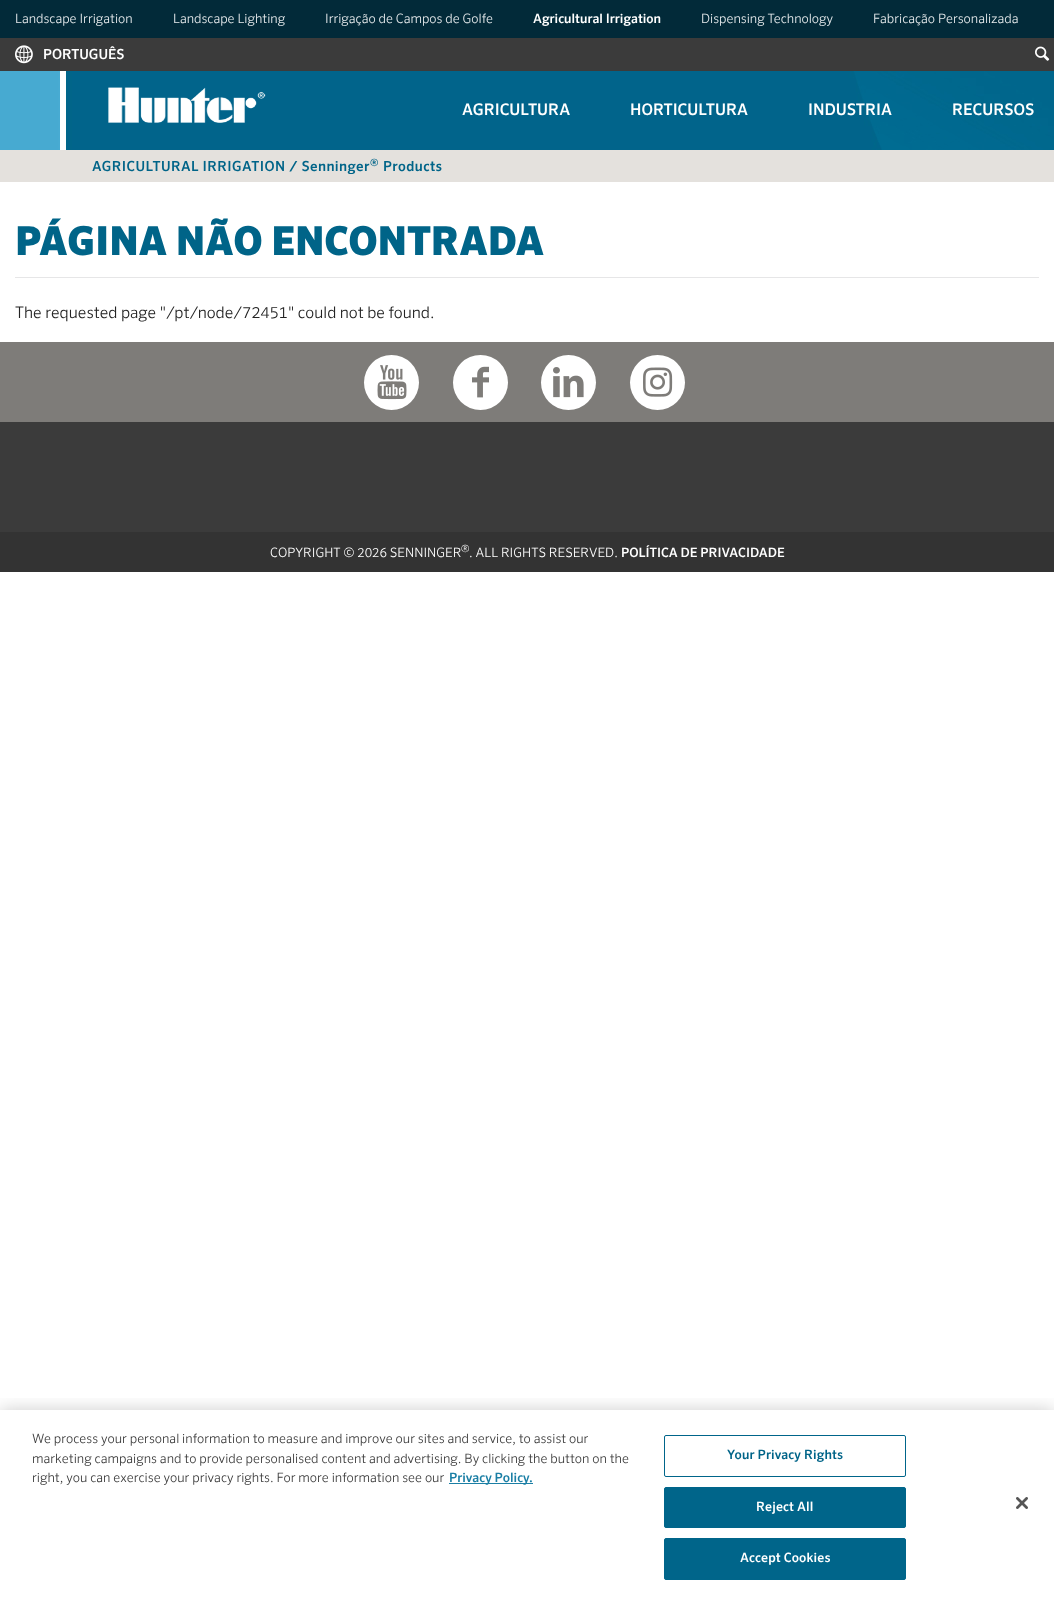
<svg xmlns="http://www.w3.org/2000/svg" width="1054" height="1600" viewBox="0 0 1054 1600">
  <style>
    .t1 { font: 300 13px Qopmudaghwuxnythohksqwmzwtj; fill: #e6eaec; }
    .t2 { font: 500 13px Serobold; fill: #fff; }
    .t3 { font: 500 14px Serobold; fill: #fff; }
    .t4 { font: 500 16px Serobold; fill: #fff; }
    .t5 { font: 500 14px Serobold; letter-spacing: 0.4px; fill: #006488; }
    .t6 { font: 500 10px Serobold; letter-spacing: 0.4px; fill: #006488; }
    .t7 { font: 900 40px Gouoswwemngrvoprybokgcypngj; fill: #006488; }
    .t8 { font: 300 16px Qopmudaghwuxnythohksqwmzwtj; fill: #232323; }
    .t9 { font: 300 13px Qopmudaghwuxnythohksqwmzwtj; fill: #fff; }
    .t10 { font: 300 10px Qopmudaghwuxnythohksqwmzwtj; fill: #fff; }
    .t11 { font: 300 13px Qopmudaghwuxnythohksqwmzwtj; fill: #3b3b3b; }
    .t12 { font: 500 13px Serobold; fill: #1b7fa5; }
    .t13 { font: 500 13px Serobold; letter-spacing: 0.1px; fill: #006488; }
    .t14 { font: 500 13px Serobold; letter-spacing: 0.1px; fill: #fff; }
  </style>
  <defs>
    <clipPath id="clip1"><rect x="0" y="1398" width="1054" height="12"/></clipPath>
  </defs>
  <rect width="100%" height="100%" fill="#fff"/>
  <image x="0" y="71" width="1054" height="79" href="images/1.png"/>
  <rect x="0" y="0" width="1054" height="38" fill="#022a39"/>
  <text x="15" y="23" class="t1">Landscape Irrigation</text>
  <text x="173" y="23" class="t1">Landscape Lighting</text>
  <text x="325" y="23" class="t1">Irrigação de Campos de Golfe</text>
  <text x="533" y="23" class="t2">Agricultural Irrigation</text>
  <text x="701" y="23" class="t1">Dispensing Technology</text>
  <text x="873" y="23" class="t1">Fabricação Personalizada</text>
  <rect x="0" y="38" width="1054" height="33" fill="#3b3b3b"/>
  <image x="15" y="45" width="18" height="19" href="images/2.png"/>
  <text x="43" y="59" class="t3">PORTUGUÊS</text>
  <image x="1035" y="46" width="15" height="15" href="images/3.png"/>
  <image x="108" y="87" width="158" height="36" href="images/4.png"/>
  <text x="462" y="115" class="t4">AGRICULTURA</text>
  <text x="630" y="115" class="t4">HORTICULTURA</text>
  <text x="808" y="115" class="t4">INDUSTRIA</text>
  <text x="952" y="115" class="t4">RECURSOS</text>
  <rect x="0" y="150" width="1054" height="32" fill="#e4e1dd"/>
  <text x="92" y="171" class="t5">AGRICULTURAL IRRIGATION / Senninger</text>
  <text x="370" y="166" class="t6">®</text>
  <text x="383" y="171" class="t5">Products</text>
  <rect x="15" y="277" width="1024" height="1" fill="#e6e6e7"/>
  <text x="15" y="255" class="t7">PÁGINA NÃO ENCONTRADA</text>
  <text x="15" y="318" class="t8">The requested page "/pt/node/72451" could not be found.</text>
  <rect x="0" y="342" width="1054" height="80" fill="#7e7c79"/>
  <circle cx="391.5" cy="382.5" r="27.5" fill="#fff"/>
  <image x="377" y="365" width="30" height="35" href="images/5.png"/>
  <circle cx="480.5" cy="382.5" r="27.5" fill="#fff"/>
  <image x="472" y="366" width="17" height="32" href="images/6.png"/>
  <circle cx="568.5" cy="382.5" r="27.5" fill="#fff"/>
  <image x="553" y="367" width="31" height="31" href="images/7.png"/>
  <circle cx="657.5" cy="382.5" r="27.5" fill="#fff"/>
  <image x="643" y="367" width="30" height="30" href="images/8.png"/>
  <rect x="0" y="422" width="1054" height="110" fill="#3b3b3b"/>
  <rect x="0" y="532" width="1054" height="40" fill="#333"/>
  <text x="270" y="557" class="t9">COPYRIGHT © 2026 SENNINGER</text>
  <text x="461" y="552" class="t10">®</text>
  <text x="469" y="557" class="t9">. ALL RIGHTS RESERVED.</text>
  <text x="621" y="557" class="t2">POLÍTICA DE PRIVACIDADE</text>
  <g clip-path="url(#clip1)">
    <rect x="0" y="1410" width="1054" height="190" fill="#00000033" filter="blur(9px)"/>
  </g>
  <text x="32" y="1443" class="t11">We process your personal information to measure and improve our sites and service, to assist our</text>
  <text x="32" y="1463" class="t11">marketing campaigns and to provide personalised content and advertising. By clicking the button on the</text>
  <text x="32" y="1482" class="t11">right, you can exercise your privacy rights. For more information see our</text>
  <rect x="449" y="1483" width="84" height="1" fill="#1b7fa5"/>
  <text x="449" y="1482" class="t12">Privacy Policy.</text>
  <rect x="664.5" y="1435.5" width="241" height="41" rx="1.5" fill="none" stroke="#00658a"/>
  <text x="727" y="1459" class="t13">Your Privacy Rights</text>
  <rect x="664.5" y="1487.5" width="241" height="40" rx="1.5" fill="#00658a" stroke="#00658a"/>
  <text x="756" y="1511" class="t14">Reject All</text>
  <rect x="664.5" y="1538.5" width="241" height="41" rx="1.5" fill="#00658a" stroke="#00658a"/>
  <text x="740" y="1562" class="t14">Accept Cookies</text>
  <image x="1016" y="1497" width="12" height="12" href="images/9.png"/>
</svg>
